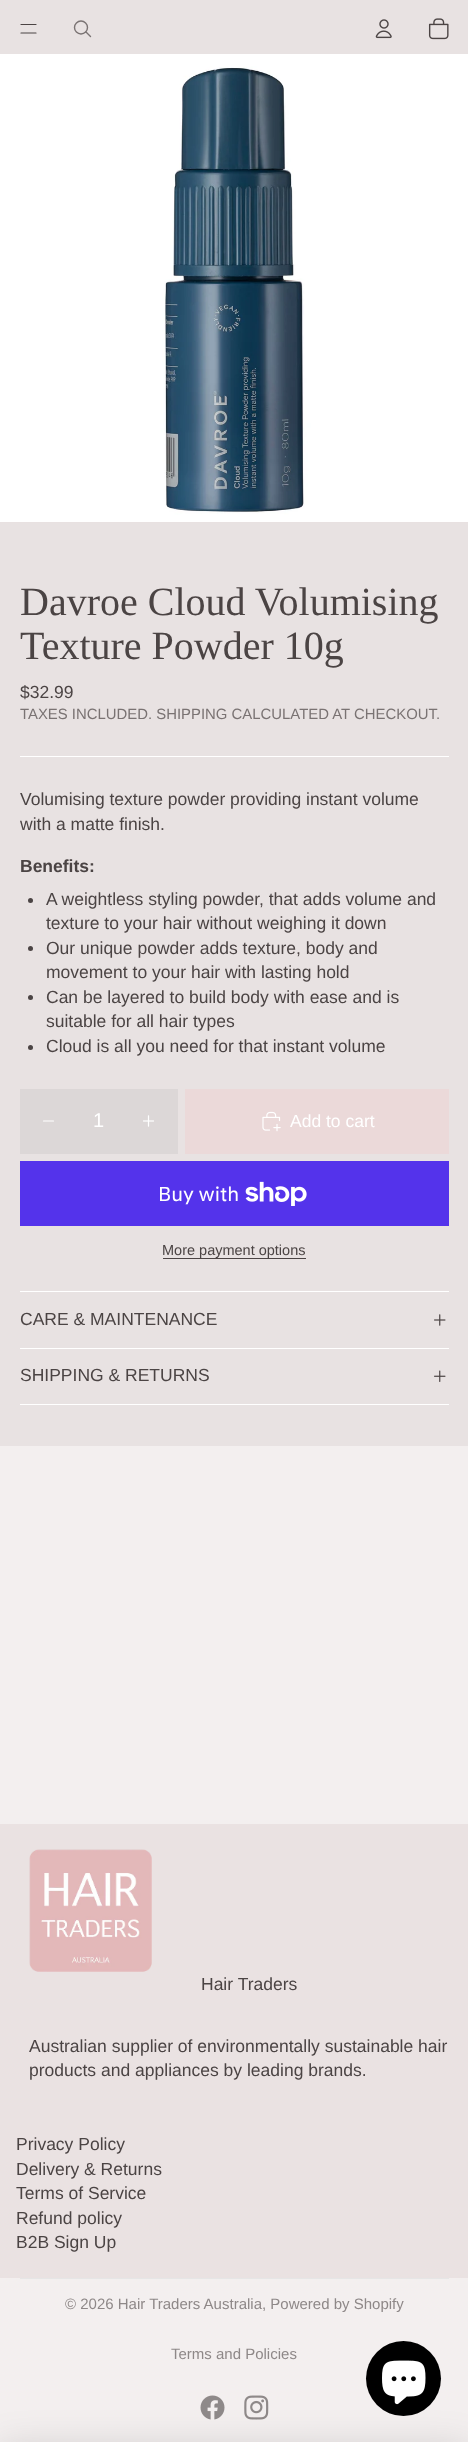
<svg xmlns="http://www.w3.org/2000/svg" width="468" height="2442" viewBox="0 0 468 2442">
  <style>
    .t1 { font: 40px Liberation Serif; fill: #4b4444; }
    .t2 { font: 17.5px Liberation Sans; fill: #4b4444; }
    .t3 { font: 14.9px Liberation Sans; fill: #7a7373; }
    .t4 { font: bold 17.5px Liberation Sans; fill: #4b4444; }
    .t5 { font: 20px Liberation Sans; fill: #fff; }
    .t6 { font: 17.5px Liberation Sans; fill: #fff; }
    .t7 { font: 20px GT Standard; fill: #fff; }
    .t8 { font: 14.5px Liberation Sans; fill: #4b4444; }
    .t9 { font: 15px Liberation Sans; fill: #8e8888; }
  </style>
  <rect width="100%" height="100%" fill="#f3efef"/>
  <rect x="0" y="0" width="468" height="1446" fill="#e8e2e2"/>
  <path d="M21 24.5H36M21 33H36" fill="none" stroke="#4b4444" stroke-width="1.2" stroke-linecap="round"/>
  <circle cx="81" cy="27.5" r="6.5" fill="none" stroke="#7a7373" stroke-width="1.4"/>
  <path d="M86 32L90.5 36.5" fill="none" stroke="#7a7373" stroke-width="1.4" stroke-linecap="round" stroke-linejoin="round"/>
  <image x="375" y="19" width="17" height="20" href="images/1.png"/>
  <image x="428" y="18" width="21" height="22" href="images/2.png"/>
  <rect x="0" y="522" width="468" height="1" fill="#e1d7d7"/>
  <image x="0" y="54" width="468" height="469" href="images/3.png"/>
  <text x="20" y="615" class="t1">Davroe Cloud Volumising</text>
  <text x="20" y="659" class="t1">Texture Powder 10g</text>
  <text x="20" y="698" class="t2">$32.99</text>
  <text x="20" y="719" class="t3">TAXES INCLUDED. SHIPPING CALCULATED AT CHECKOUT.</text>
  <rect x="20" y="756" width="429" height="1" fill="#fff"/>
  <text x="20" y="805" class="t2">Volumising texture powder providing instant volume</text>
  <text x="20" y="830" class="t2">with a matte finish.</text>
  <text x="20" y="872" class="t4">Benefits:</text>
  <circle cx="30.5" cy="900.5" r="2.5" fill="#4b4444"/>
  <text x="46" y="905" class="t2">A weightless styling powder, that adds volume and</text>
  <text x="46" y="929" class="t2">texture to your hair without weighing it down</text>
  <circle cx="30.5" cy="948.5" r="2.5" fill="#4b4444"/>
  <text x="46" y="954" class="t2">Our unique powder adds texture, body and</text>
  <text x="46" y="978" class="t2">movement to your hair with lasting hold</text>
  <circle cx="30.5" cy="997.5" r="2.5" fill="#4b4444"/>
  <text x="46" y="1003" class="t2">Can be layered to build body with ease and is</text>
  <text x="46" y="1027" class="t2">suitable for all hair types</text>
  <circle cx="30.5" cy="1047.5" r="2.5" fill="#4b4444"/>
  <text x="46" y="1052" class="t2">Cloud is all you need for that instant volume</text>
  <rect x="20" y="1089" width="158" height="65" fill="#dcd7d7"/>
  <path d="M43.5 1121H53.5" fill="none" stroke="#fff" stroke-width="1.2" stroke-linecap="round"/>
  <text x="93" y="1127" class="t5">1</text>
  <image x="143" y="1115" width="11" height="12" href="images/4.png"/>
  <rect x="185" y="1089" width="264" height="65" fill="#ebd9d9"/>
  <image x="262" y="1111" width="19" height="21" href="images/5.png"/>
  <text x="290" y="1127" class="t6">Add to cart</text>
  <rect x="20" y="1161" width="429" height="65" fill="#5433eb"/>
  <text x="158" y="1201" class="t7">Buy with</text>
  <image x="245" y="1181" width="62" height="25" href="images/6.png"/>
  <text x="162" y="1255" class="t8">More payment options</text>
  <rect x="163" y="1258" width="143" height="1" fill="#4b4444"/>
  <rect x="20" y="1291" width="429" height="1" fill="#fff"/>
  <text x="20" y="1325" class="t2">CARE &amp; MAINTENANCE</text>
  <image x="434" y="1314" width="12" height="12" href="images/7.png"/>
  <rect x="20" y="1348" width="429" height="1" fill="#fff"/>
  <rect x="20" y="1404" width="429" height="1" fill="#fff"/>
  <text x="20" y="1381" class="t2">SHIPPING &amp; RETURNS</text>
  <image x="434" y="1370" width="12" height="12" href="images/8.png"/>
  <rect x="0" y="1824" width="468" height="454" fill="#eae2e2"/>
  <image x="29" y="1849" width="123" height="123" href="images/9.png"/>
  <text x="201" y="1990" class="t2">Hair Traders</text>
  <text x="29" y="2052" class="t2">Australian supplier of environmentally sustainable hair</text>
  <text x="29" y="2076" class="t2">products and appliances by leading brands.</text>
  <text x="16" y="2150" class="t2">Privacy Policy</text>
  <text x="16" y="2175" class="t2">Delivery &amp; Returns</text>
  <text x="16" y="2199" class="t2">Terms of Service</text>
  <text x="16" y="2224" class="t2">Refund policy</text>
  <text x="16" y="2248" class="t2">B2B Sign Up</text>
  <rect x="20" y="2278" width="429" height="1" fill="#e6e6e6"/>
  <text x="65" y="2309" class="t9">© 2026 Hair Traders Australia, Powered by Shopify</text>
  <text x="171" y="2359" class="t9">Terms and Policies</text>
  <image x="200" y="2395" width="25" height="25" href="images/10.png"/>
  <image x="244" y="2395" width="25" height="25" href="images/11.png"/>
  <rect x="0" y="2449" width="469" height="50" fill="#00000026" filter="blur(19px)"/>
  <circle cx="403.5" cy="2378.5" r="37.5" fill="#000"/>
  <image x="382" y="2360" width="44" height="45" href="images/12.png"/>
</svg>
